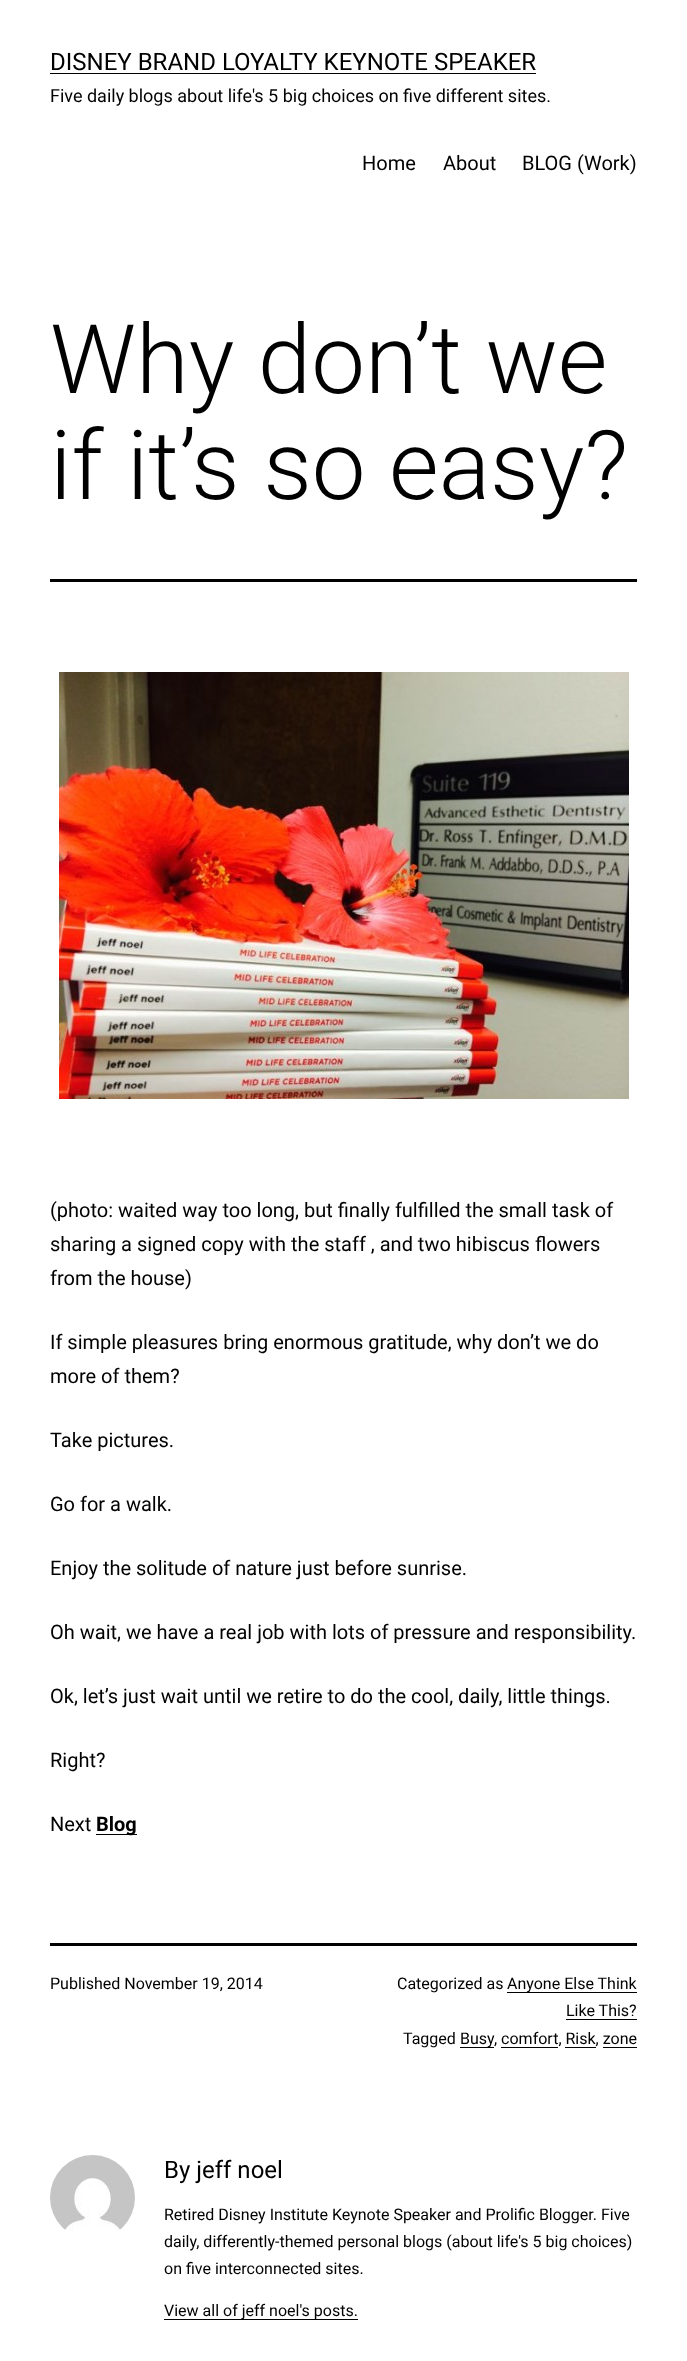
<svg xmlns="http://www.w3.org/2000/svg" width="687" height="2361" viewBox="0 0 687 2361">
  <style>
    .t1 { font: 24px Roboto; fill: #000; }
    .t2 { font: 18px Roboto; fill: #000; }
    .t3 { font: 20px Roboto; fill: #000; }
    .t4 { font: 300 96px Roboto; fill: #000; }
    .t5 { font: bold 20px Roboto; fill: #000; }
    .t6 { font: 16px Roboto; fill: #000; }
  </style>
  <rect width="100%" height="100%" fill="#fff"/>
  <text x="50" y="70" class="t1">DISNEY BRAND LOYALTY KEYNOTE SPEAKER</text>
  <rect x="50" y="73" width="486" height="1" fill="#000"/>
  <text x="50" y="102" class="t2">Five daily blogs about life's 5 big choices on five different sites.</text>
  <text x="362" y="170" class="t3">Home</text>
  <text x="443" y="170" class="t3">About</text>
  <text x="522" y="170" class="t3">BLOG (Work)</text>
  <rect x="50" y="579" width="587" height="3" fill="#000"/>
  <text x="50" y="393" class="t4">Why don’t we</text>
  <text x="50" y="499" class="t4">if it’s so easy?</text>
  <image x="59" y="672" width="570" height="427" href="images/1.png"/>
  <text x="50" y="1217" class="t3">(photo: waited way too long, but finally fulfilled the small task of</text>
  <text x="50" y="1251" class="t3">sharing a signed copy with the staff , and two hibiscus flowers</text>
  <text x="50" y="1285" class="t3">from the house)</text>
  <text x="50" y="1349" class="t3">If simple pleasures bring enormous gratitude, why don’t we do</text>
  <text x="50" y="1383" class="t3">more of them?</text>
  <text x="50" y="1447" class="t3">Take pictures.</text>
  <text x="50" y="1511" class="t3">Go for a walk.</text>
  <text x="50" y="1575" class="t3">Enjoy the solitude of nature just before sunrise.</text>
  <text x="50" y="1639" class="t3">Oh wait, we have a real job with lots of pressure and responsibility.</text>
  <text x="50" y="1703" class="t3">Ok, let’s just wait until we retire to do the cool, daily, little things.</text>
  <text x="50" y="1767" class="t3">Right?</text>
  <text x="50" y="1831" class="t3">Next</text>
  <rect x="96" y="1834" width="41" height="1" fill="#000"/>
  <text x="96" y="1831" class="t5">Blog</text>
  <rect x="50" y="1943" width="587" height="3" fill="#000"/>
  <text x="50" y="1989" class="t6">Published November 19, 2014</text>
  <text x="397" y="1989" class="t6">Categorized as</text>
  <rect x="507" y="1992" width="130" height="1" fill="#000"/>
  <text x="507" y="1989" class="t6">Anyone Else Think</text>
  <text x="566" y="2016" class="t6">Like This?</text>
  <rect x="566" y="2019" width="71" height="1" fill="#000"/>
  <text x="403" y="2044" class="t6">Tagged</text>
  <rect x="460" y="2047" width="34" height="1" fill="#000"/>
  <text x="460" y="2044" class="t6">Busy</text>
  <text x="494" y="2044" class="t6">, comfort, Risk, zone</text>
  <rect x="501" y="2047" width="57" height="1" fill="#000"/>
  <rect x="565" y="2047" width="31" height="1" fill="#000"/>
  <rect x="603" y="2047" width="34" height="1" fill="#000"/>
  <image x="50" y="2155" width="85" height="77" href="images/2.png"/>
  <text x="164" y="2178" class="t1">By jeff noel</text>
  <text x="164" y="2220" class="t6">Retired Disney Institute Keynote Speaker and Prolific Blogger. Five</text>
  <text x="164" y="2247" class="t6">daily, differently-themed personal blogs (about life's 5 big choices)</text>
  <text x="164" y="2274" class="t6">on five interconnected sites.</text>
  <rect x="164" y="2319" width="194" height="1" fill="#000"/>
  <text x="164" y="2316" class="t6">View all of jeff noel's posts.</text>
</svg>
